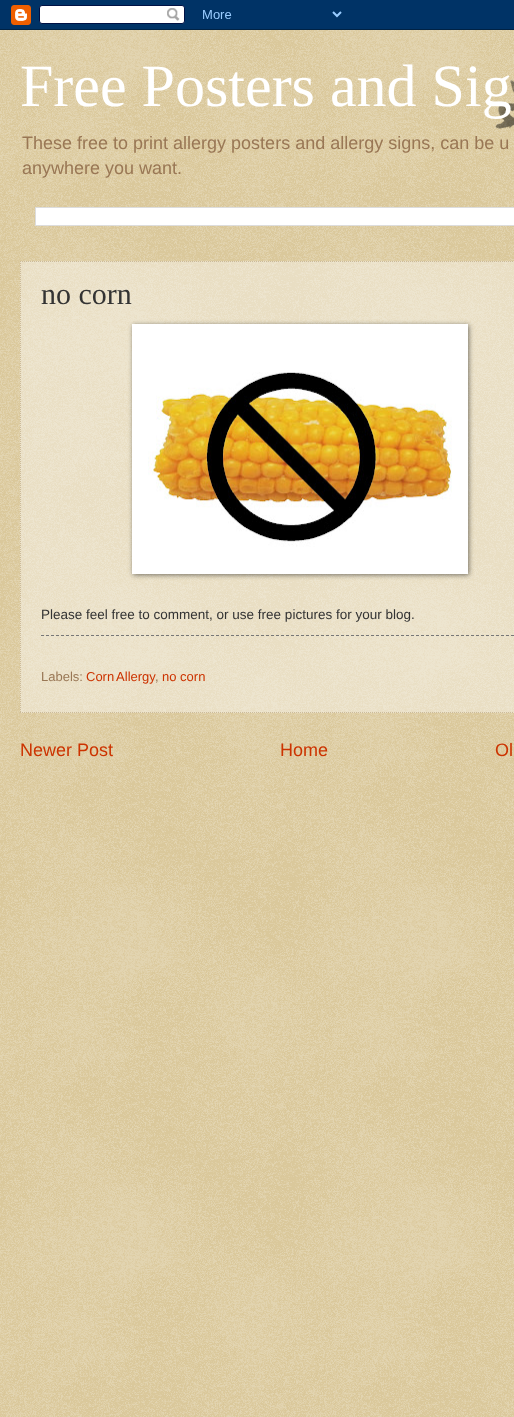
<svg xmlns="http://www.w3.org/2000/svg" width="514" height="1417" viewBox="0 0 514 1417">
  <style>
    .t1 { font: 60px Liberation Serif; fill: #fff; }
    .t2 { font: 18px Liberation Sans; fill: #975; }
    .t3 { font: 30px Liberation Serif; fill: #333; }
    .t4 { font: 13.5px Liberation Sans; fill: #333; }
    .t5 { font: 13px Liberation Sans; fill: #975; }
    .t6 { font: 13px Liberation Sans; fill: #c30; }
    .t7 { font: 18px Liberation Sans; fill: #c30; }
  </style>
  <rect width="100%" height="100%" fill="#c0a154"/>
  <image x="0" y="30" width="514" height="1387" href="images/1.png"/>
  <image x="0" y="0" width="514" height="30" href="images/2.png"/>
  <image x="495" y="79" width="19" height="50" href="images/4.png"/>
  <text x="20" y="106" class="t1">Free Posters and Sig</text>
  <text x="22" y="149" class="t2">These free to print allergy posters and allergy signs, can be u</text>
  <text x="22" y="174" class="t2">anywhere you want.</text>
  <rect x="35.5" y="207.5" width="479" height="18" fill="#fff" stroke="#ddd"/>
  <rect x="20" y="261" width="494" height="452" fill="#ffffff66"/>
  <path d="M20 261.5H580" fill="none" stroke="#cb9" stroke-dasharray="1 1"/>
  <path d="M20 712.5H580" fill="none" stroke="#cb9" stroke-dasharray="1 1"/>
  <path d="M20.5 261V713" fill="none" stroke="#cb9" stroke-dasharray="1 1"/>
  <text x="41" y="304" class="t3">no corn</text>
  <rect x="133" y="325" width="336" height="250" fill="#00000080" filter="blur(2.5px)"/>
  <rect x="132" y="324" width="336" height="250" fill="#fff"/>
  <image x="148" y="372" width="304" height="175" href="images/3.png"/>
  <text x="41" y="619" class="t4">Please feel free to comment, or use free pictures for your blog.</text>
  <path d="M41 635.5H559" fill="none" stroke="#777" stroke-dasharray="3 2"/>
  <text x="41" y="681" class="t5">Labels:</text>
  <text x="86" y="681" word-spacing="-1" class="t6">Corn Allergy</text>
  <text x="155" y="681" class="t5">,</text>
  <text x="162" y="681" class="t6">no corn</text>
  <text x="20" y="756" class="t7">Newer Post</text>
  <text x="280" y="756" class="t7">Home</text>
  <text x="495" y="756" class="t7">Ol</text>
</svg>
